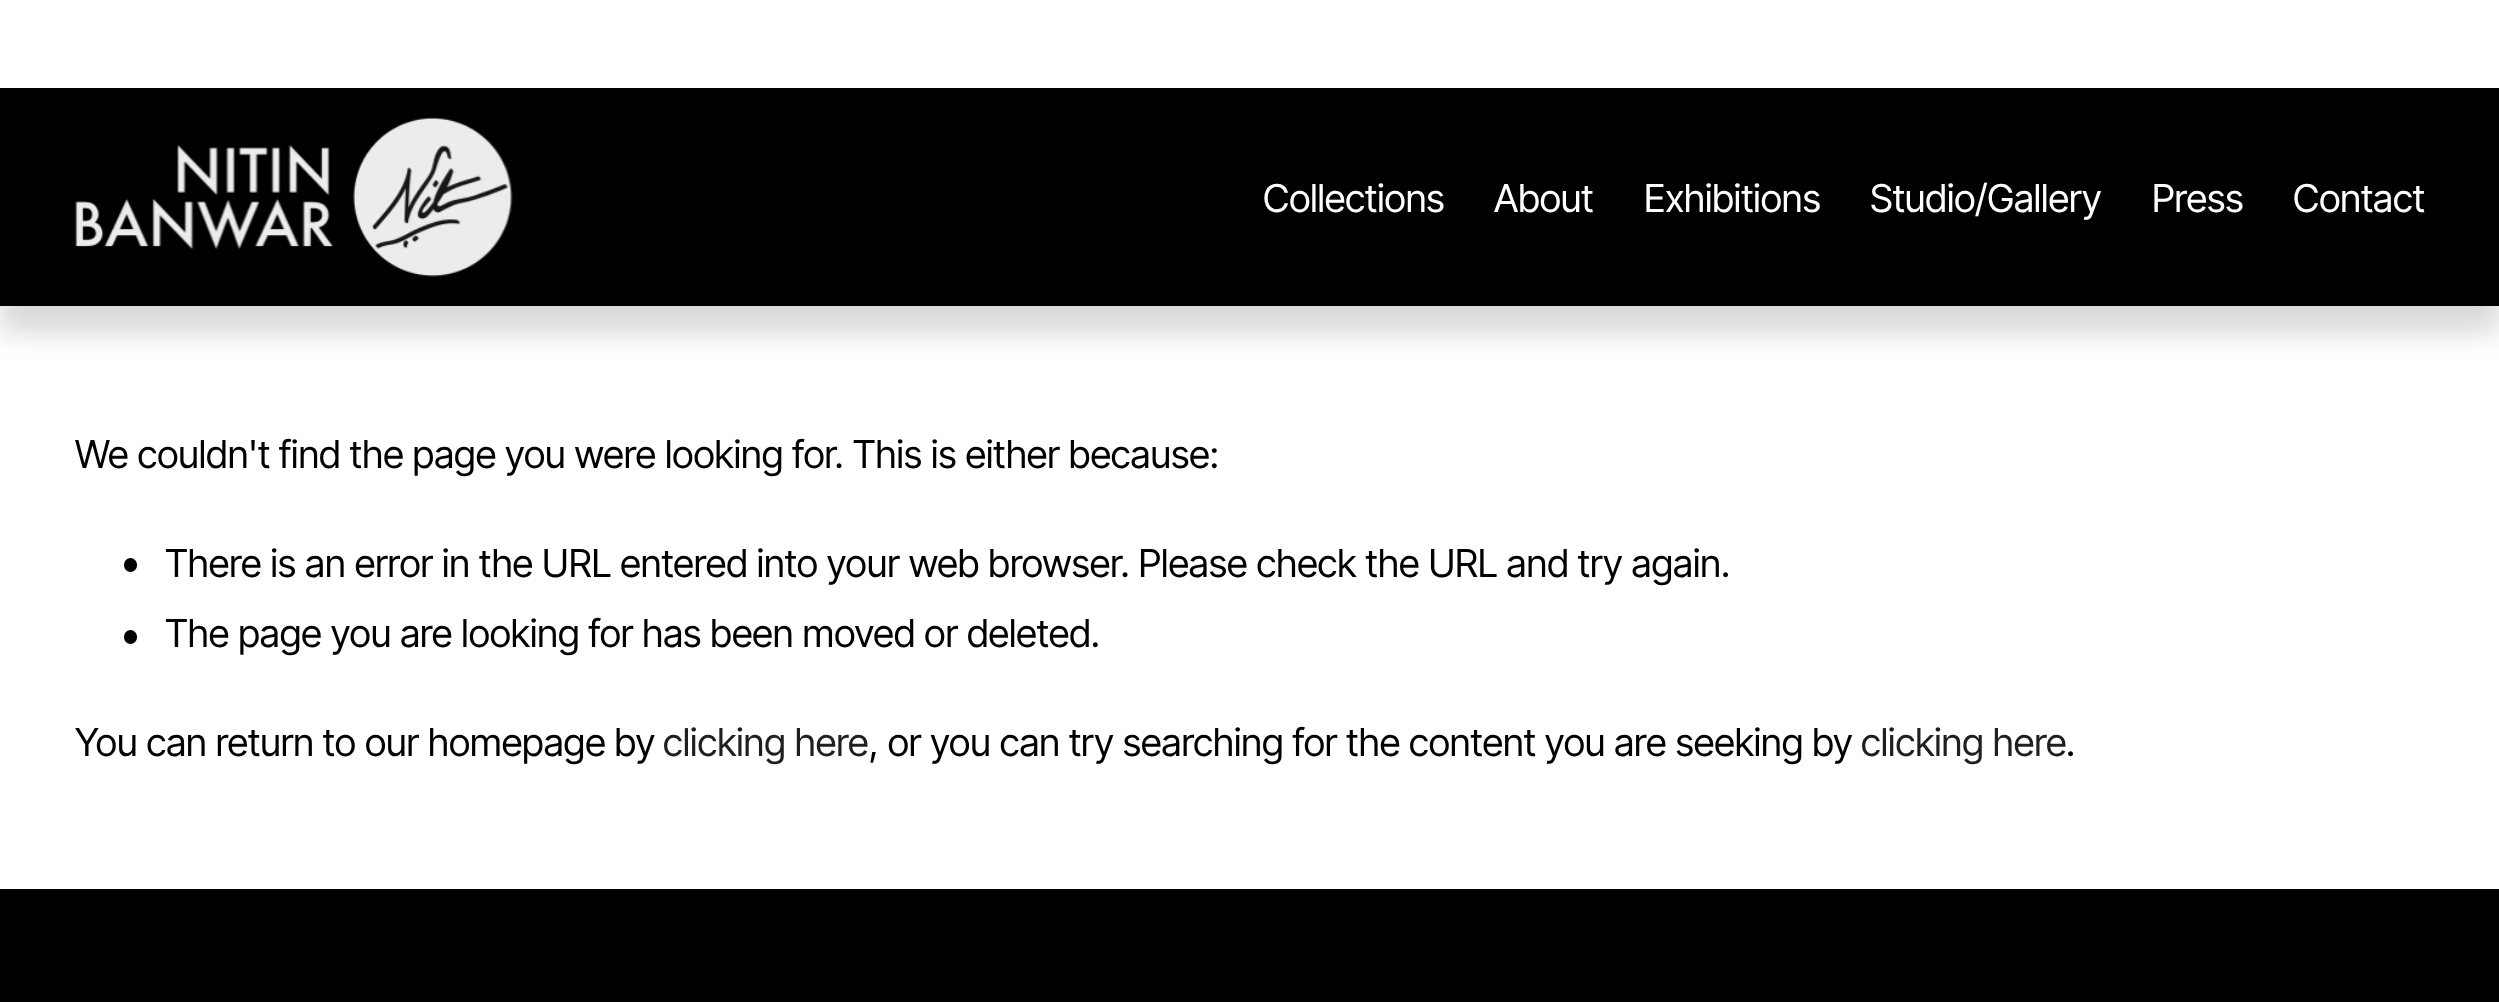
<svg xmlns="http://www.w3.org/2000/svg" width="2499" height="1002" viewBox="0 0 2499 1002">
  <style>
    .t1 { font: 38.4px Inter Tight; fill: #fff; }
    .t2 { font: 38.4px Inter Tight; fill: #000; }
    .t3 { font: 38.4px Inter Tight; fill: #1f1f1f; }
  </style>
  <rect width="100%" height="100%" fill="#fff"/>
  <rect x="0" y="115" width="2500" height="218" fill="#d9d9d9" filter="blur(13.5px)"/>
  <rect x="0" y="88" width="2499" height="218" fill="#000"/>
  <image x="75" y="117" width="438" height="160" href="images/1.png"/>
  <text x="1263" y="212" class="t1">Collections</text>
  <text x="1494" y="212" class="t1">About</text>
  <text x="1644" y="212" class="t1">Exhibitions</text>
  <text x="1870" y="212" class="t1">Studio/Gallery</text>
  <text x="2152" y="212" class="t1">Press</text>
  <text x="2293" y="212" class="t1">Contact</text>
  <text x="75" y="468" class="t2">We couldn't find the page you were looking for. This is either because:</text>
  <rect x="124" y="558" width="13" height="14" rx="6.5" fill="#000"/>
  <text x="165" y="577" class="t2">There is an error in the URL entered into your web browser. Please check the URL and try again.</text>
  <rect x="124" y="630" width="13" height="14" rx="6.5" fill="#000"/>
  <text x="165" y="647" class="t2">The page you are looking for has been moved or deleted.</text>
  <text x="75" y="756" class="t2">You can return to our homepage by</text>
  <text x="663" y="756" class="t3">clicking here</text>
  <text x="869" y="756" class="t2">, or you can try searching for the</text>
  <text x="1409" y="756" class="t2">content you are seeking by</text>
  <text x="1861" y="756" class="t3">clicking here</text>
  <text x="2066" y="756" class="t2">.</text>
  <rect x="0" y="889" width="2499" height="113" fill="#000"/>
</svg>
